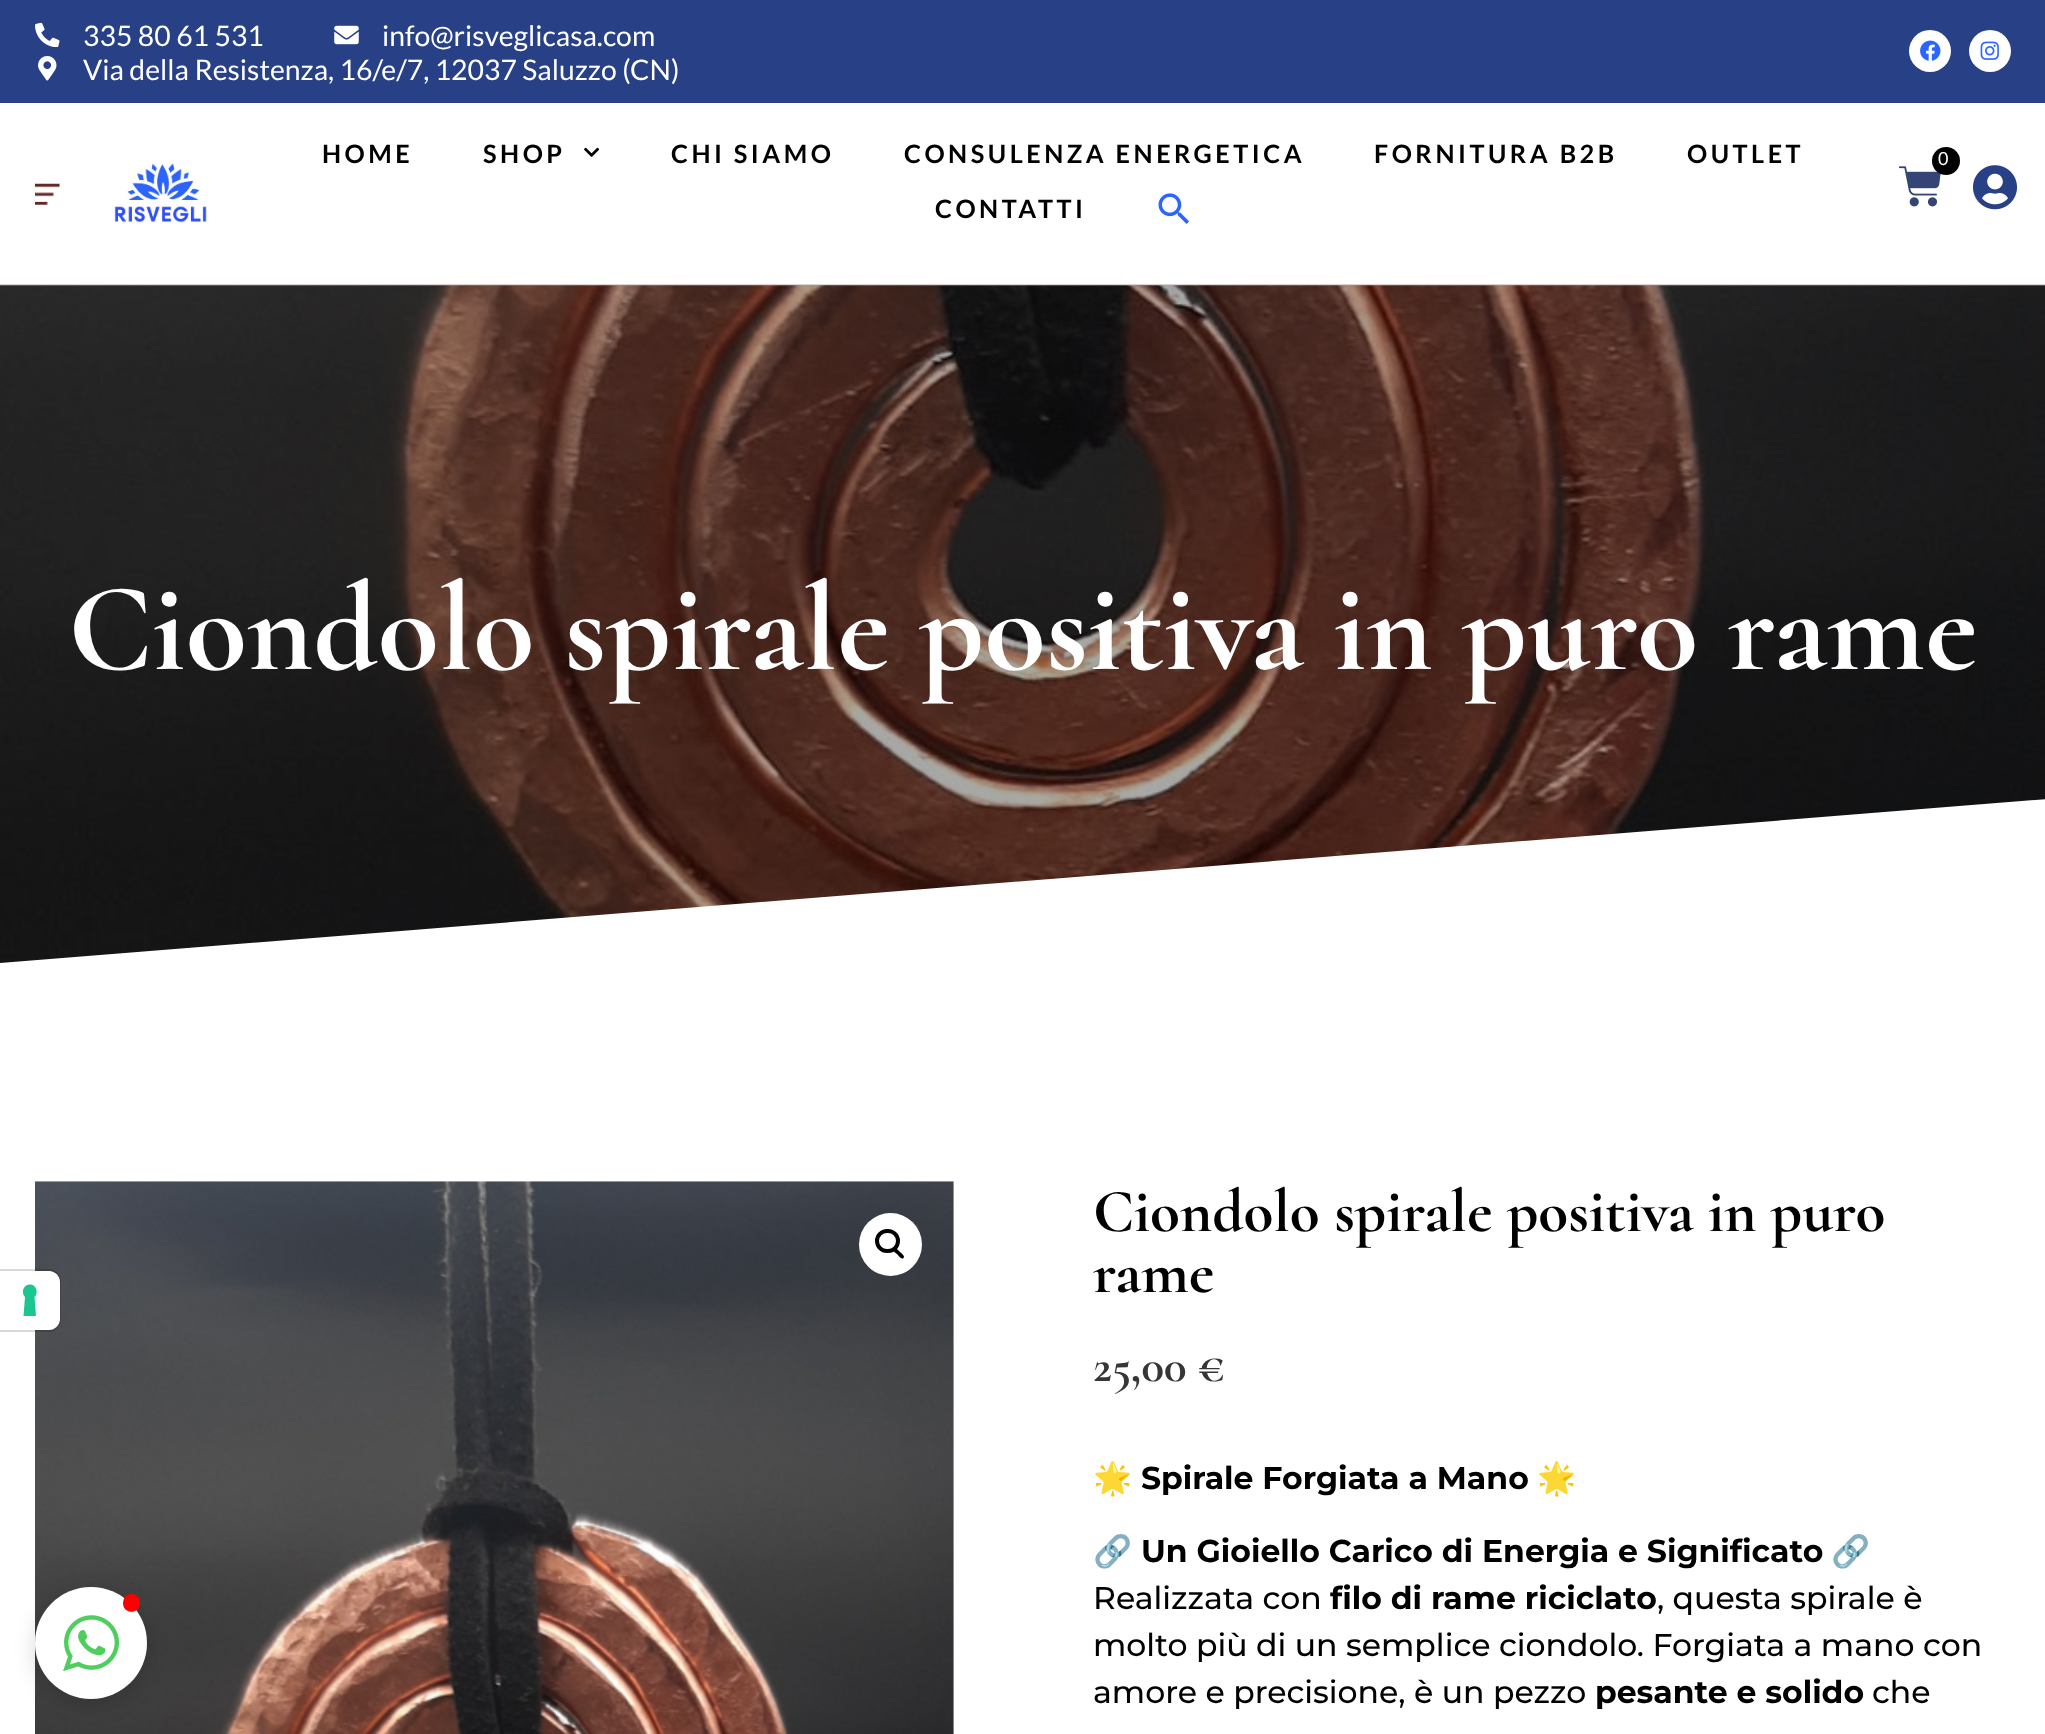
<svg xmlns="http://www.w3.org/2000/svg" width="2045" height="1734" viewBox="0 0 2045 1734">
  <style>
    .t1 { font: 28.35px Lato; fill: #fff; }
    .t2 { font: bold 25.25px Lato; letter-spacing: 3.5px; fill: #000; }
    .t3 { font: 18px Lato; letter-spacing: 5px; fill: #fff; }
    .t4 { font: bold 126px Cormorant; fill: #fff; }
    .t5 { font: bold 61.25px Cormorant; fill: #000; }
    .t6 { font: bold 47px Cormorant; fill: #363636; }
    .t7 { font: 31.5px Noto Color Emoji; fill: #000; }
    .t8 { font: bold 31.5px Montserrat; fill: #000; }
    .t9 { font: 500 31.5px Montserrat; fill: #000; }
  </style>
  <defs>
    <clipPath id="clip1"><rect x="0" y="798" width="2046" height="175"/></clipPath>
  </defs>
  <rect width="100%" height="100%" fill="#fff"/>
  <rect x="0" y="0" width="2045" height="103" fill="#284186"/>
  <image x="35" y="23" width="25" height="24" href="images/1.png"/>
  <text x="83" y="46" class="t1">335 80 61 531</text>
  <image x="334" y="25" width="25" height="20" href="images/2.png"/>
  <text x="382" y="46" class="t1">info@risveglicasa.com</text>
  <image x="38" y="56" width="19" height="25" href="images/3.png"/>
  <text x="83" y="80" class="t1">Via della Resistenza, 16/e/7, 12037 Saluzzo (CN)</text>
  <circle cx="1930" cy="51" r="21" fill="#fff"/>
  <image x="1920" y="40" width="21" height="21" href="images/4.png"/>
  <circle cx="1990" cy="51" r="21" fill="#fff"/>
  <image x="1980" y="41" width="19" height="19" href="images/5.png"/>
  <image x="0" y="285" width="2045" height="678" href="images/12.png"/>
  <rect x="0" y="284" width="2045" height="2" fill="#5d2d2c36"/>
  <text x="322" y="163" class="t2">HOME</text>
  <text x="483" y="163" class="t2">SHOP</text>
  <image x="584" y="147" width="15" height="10" href="images/6.png"/>
  <text x="671" y="163" class="t2">CHI SIAMO</text>
  <text x="904" y="163" class="t2">CONSULENZA ENERGETICA</text>
  <text x="1374" y="163" class="t2">FORNITURA B2B</text>
  <text x="1687" y="163" class="t2">OUTLET</text>
  <text x="935" y="218" class="t2">CONTATTI</text>
  <image x="1158" y="193" width="31" height="31" href="images/7.png"/>
  <image x="1899" y="166" width="42" height="41" href="images/8.png"/>
  <circle cx="1946" cy="161" r="14" fill="#000"/>
  <text x="1938" y="165" class="t3">0</text>
  <image x="1972" y="165" width="46" height="45" href="images/9.png"/>
  <image x="35" y="183" width="25" height="22" href="images/10.png"/>
  <image x="114" y="163" width="93" height="60" href="images/11.png"/>
  <image x="35" y="1181" width="919" height="553" href="images/13.png"/>
  <path d="M-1 1270H49C55 1270 60 1275 60 1281V1320C60 1326 55 1331 49 1331H-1Z" fill="none" stroke="#00000026" stroke-width="2"/>
  <path d="M0 1271H49C55 1271 60 1276 60 1282V1319C60 1325 55 1330 49 1330H0Z" fill="#fff"/>
  <path d="M30 1284.5C36 1284.5 39 1292.5 34.5 1297L36 1316H23.5L25 1297C20.5 1292.5 23.5 1284.5 30 1284.5Z" fill="#1cc691" fill-rule="evenodd"/>
  <text x="68" y="669" class="t4">Ciondolo spirale positiva in puro rame</text>
  <g clip-path="url(#clip1)">
    <path d="M0 963V974H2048V799Z" fill="#fff"/>
  </g>
  <circle cx="890.5" cy="1244.5" r="31.5" fill="#fff"/>
  <rect x="877" y="1231" width="21" height="20" rx="10" fill="none" stroke="#000" stroke-width="4"/>
  <path d="M893.5 1248.5C895.5 1246.5 899 1251 900 1252C901 1253 905.5 1256 903.5 1258C901.5 1260 898.5 1255.5 897.5 1254.5C896.5 1253.5 891.5 1250.5 893.5 1248.5Z" fill="#000"/>
  <text x="1093" y="1231" class="t5">Ciondolo spirale positiva in puro</text>
  <text x="1093" y="1292" class="t5">rame</text>
  <text x="1093" y="1381" class="t6">25,00 €</text>
  <text x="1093" y="1489" class="t7">🌟</text>
  <text x="1141" y="1489" class="t8">Spirale Forgiata a Mano</text>
  <text x="1537" y="1489" class="t7">🌟</text>
  <text x="1093" y="1562" class="t7">🔗</text>
  <text x="1141" y="1562" class="t8">Un Gioiello Carico di Energia e Significato</text>
  <text x="1831" y="1562" class="t7">🔗</text>
  <text x="1093" y="1609" class="t9">Realizzata con</text>
  <text x="1330" y="1609" class="t8">filo di rame riciclato</text>
  <text x="1657" y="1609" class="t9">, questa spirale è</text>
  <text x="1093" y="1656" class="t9">molto più di un semplice ciondolo. Forgiata a mano con</text>
  <text x="1093" y="1703" class="t9">amore e precisione, è un pezzo</text>
  <text x="1595" y="1703" class="t8">pesante e solido</text>
  <text x="1872" y="1703" class="t9">che</text>
  <rect x="35" y="1593" width="112" height="112" rx="56" fill="#00000026" filter="blur(10.5px)"/>
  <circle cx="91" cy="1643" r="56" fill="#fff"/>
  <rect x="123" y="1594" width="17" height="18" rx="8.5" fill="#f00"/>
  <image x="63" y="1615" width="56" height="56" href="images/14.png"/>
</svg>
